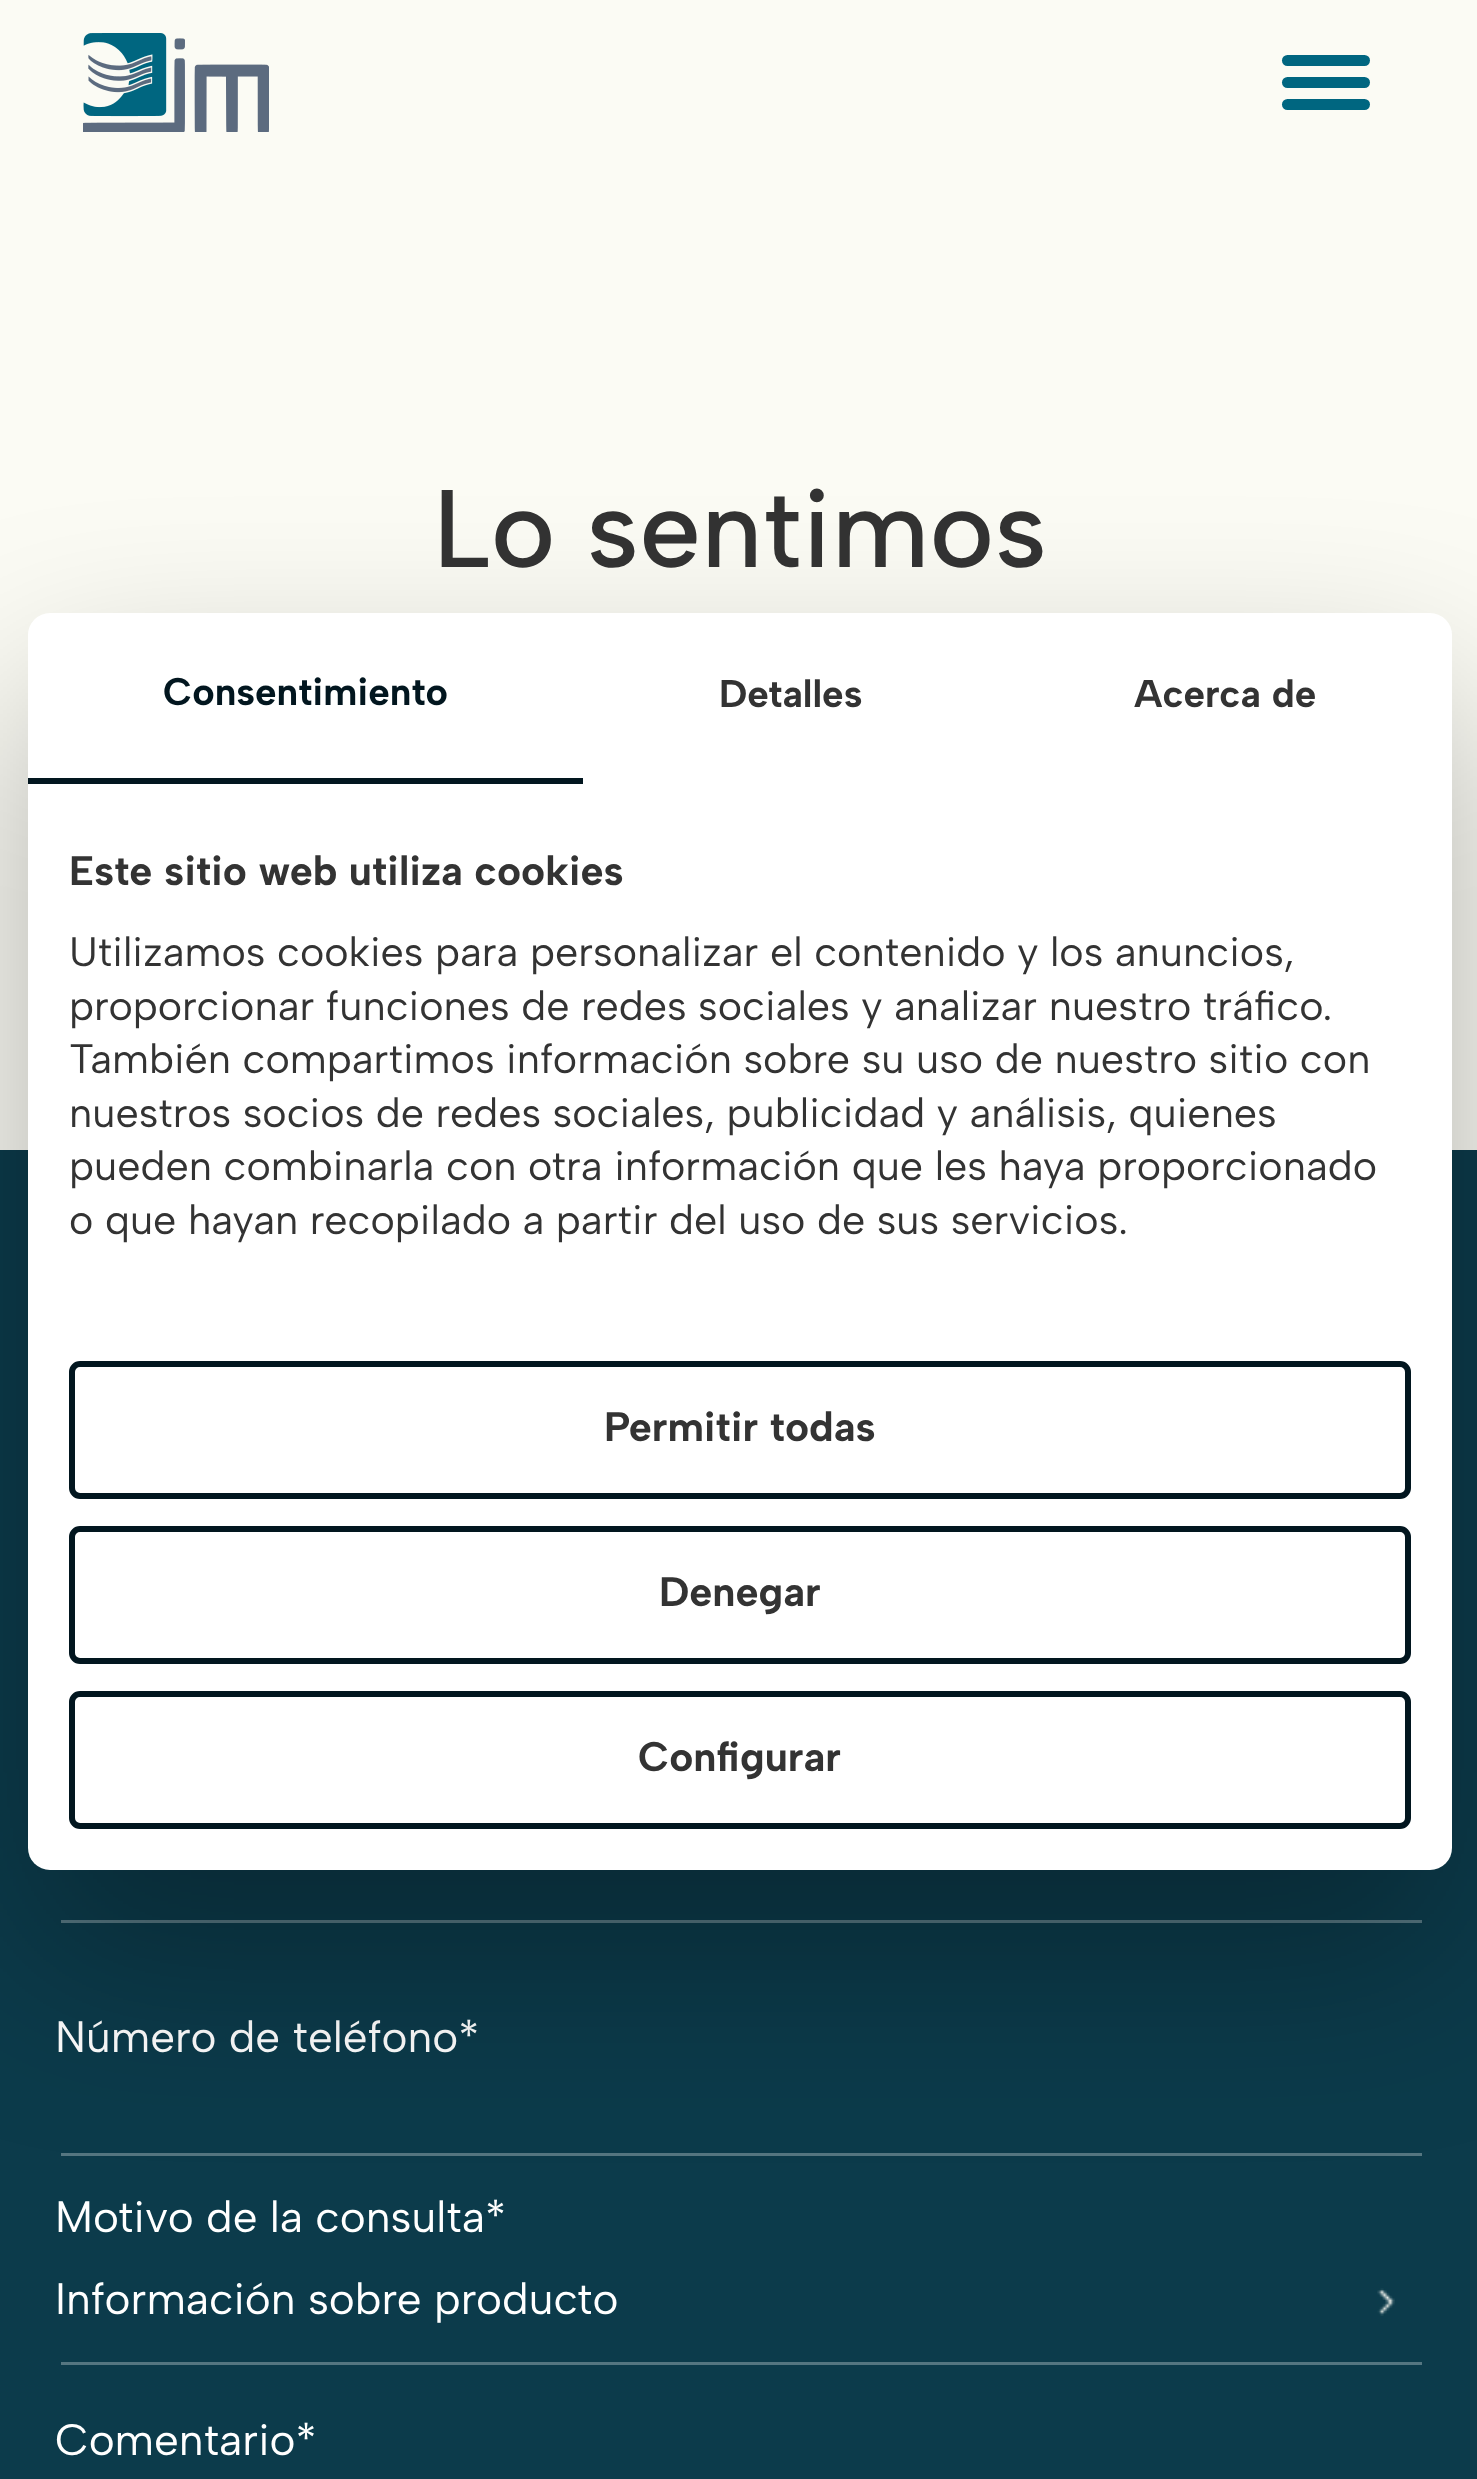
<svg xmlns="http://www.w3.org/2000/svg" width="1477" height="2479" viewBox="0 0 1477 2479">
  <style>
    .t1 { font: 500 110px Albert Sans; fill: #333; }
    .t2 { font: 44px Albert Sans; fill: #fff; }
    .t3 { font: bold 38.5px Albert Sans; fill: #02161f; }
    .t4 { font: bold 38.5px Albert Sans; fill: #333; }
    .t5 { font: bold 41.25px Albert Sans; fill: #333; }
    .t6 { font: 41.25px Albert Sans; fill: #333; }
  </style>
  <rect width="100%" height="100%" fill="#fbfbf4"/>
  <image x="83" y="33" width="186" height="99" href="images/1.png"/>
  <rect x="1282" y="55" width="88" height="11" rx="5.5" fill="#006680"/>
  <rect x="1282" y="77" width="88" height="11" rx="5.5" fill="#006680"/>
  <rect x="1282" y="99" width="88" height="11" rx="5.5" fill="#006680"/>
  <text x="433" y="567" class="t1">Lo sentimos</text>
  <rect x="0" y="1150" width="1477" height="1329" fill="#0c3b4b"/>
  <rect x="61" y="1920" width="1361" height="3" fill="#557681"/>
  <rect x="61" y="2153" width="1361" height="3" fill="#557681"/>
  <text x="55" y="2052" class="t2">Número de teléfono*</text>
  <text x="55" y="2232" class="t2">Motivo de la consulta*</text>
  <image x="1377" y="2288" width="18" height="28" href="images/2.png"/>
  <rect x="61" y="2362" width="1361" height="3" fill="#557681"/>
  <text x="55" y="2314" class="t2">Información sobre producto</text>
  <text x="55" y="2455" class="t2">Comentario*</text>
  <rect x="28" y="701" width="1424" height="1257" rx="22" fill="#0000004d" filter="blur(93.5px)"/>
  <rect x="28" y="613" width="1424" height="1257" rx="22" fill="#fff"/>
  <rect x="28" y="778" width="555" height="6" fill="#02161f"/>
  <text x="163" y="705" class="t3">Consentimiento</text>
  <text x="719" y="707" class="t4">Detalles</text>
  <text x="1134" y="707" class="t4">Acerca de</text>
  <text x="69" y="885" class="t5">Este sitio web utiliza cookies</text>
  <text x="69" y="966" class="t6">Utilizamos cookies para personalizar el contenido y los anuncios,</text>
  <text x="69" y="1020" class="t6">proporcionar funciones de redes sociales y analizar nuestro tráfico.</text>
  <text x="69" y="1073" class="t6">También compartimos información sobre su uso de nuestro sitio con</text>
  <text x="69" y="1127" class="t6">nuestros socios de redes sociales, publicidad y análisis, quienes</text>
  <text x="69" y="1180" class="t6">pueden combinarla con otra información que les haya proporcionado</text>
  <text x="69" y="1234" class="t6">o que hayan recopilado a partir del uso de sus servicios.</text>
  <rect x="72" y="1364" width="1336" height="132" rx="8" fill="none" stroke="#02161f" stroke-width="6"/>
  <text x="604" y="1441" class="t5">Permitir todas</text>
  <rect x="72" y="1529" width="1336" height="132" rx="8" fill="none" stroke="#02161f" stroke-width="6"/>
  <text x="659" y="1606" class="t5">Denegar</text>
  <rect x="72" y="1694" width="1336" height="132" rx="8" fill="none" stroke="#02161f" stroke-width="6"/>
  <text x="638" y="1771" class="t5">Configurar</text>
</svg>
